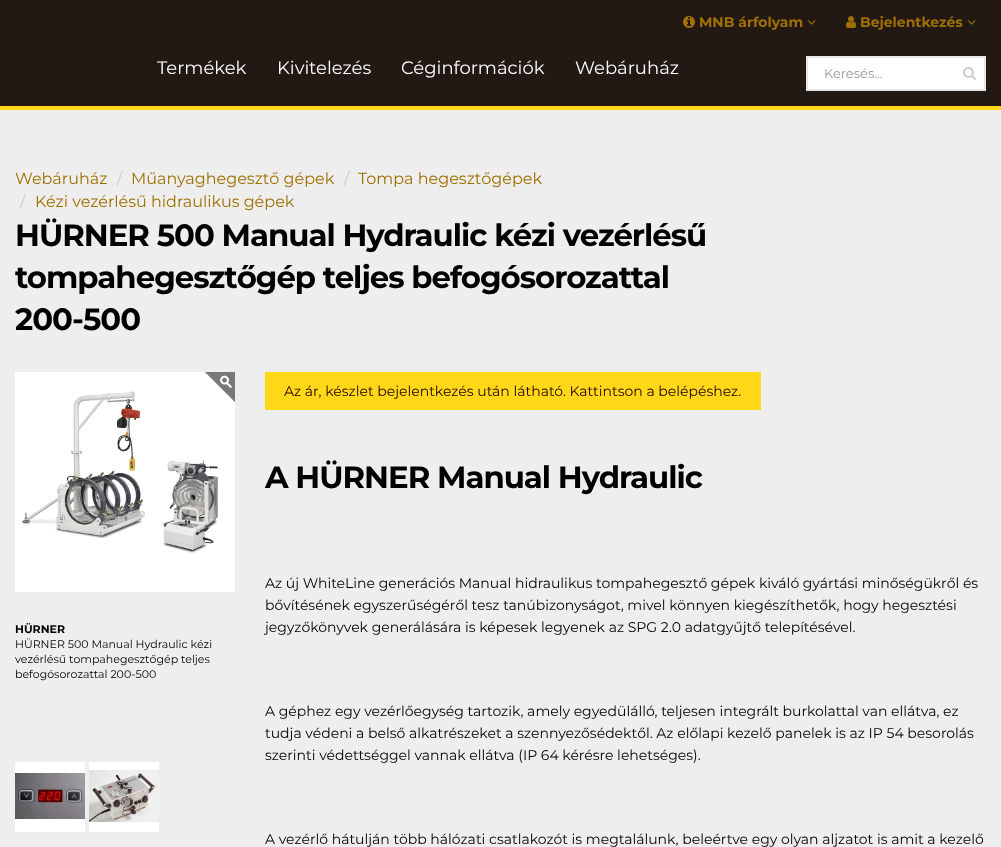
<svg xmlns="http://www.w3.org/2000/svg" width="1001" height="847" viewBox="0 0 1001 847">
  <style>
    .t1 { font: bold 14px Montserrat; fill: #a07000; }
    .t2 { font: 18px Montserrat; fill: #fff; }
    .t3 { font: 13px Montserrat; fill: #999; }
    .t4 { font: 16px Montserrat; fill: #a07000; }
    .t5 { font: 16px Montserrat; fill: #ccc; }
    .t6 { font: bold 30.8px Montserrat; letter-spacing: -1px; fill: #000; }
    .t7 { font: bold 11px Montserrat; fill: #000; }
    .t8 { font: 11px Montserrat; fill: #000; }
    .t9 { font: 14px Montserrat; fill: #240200; }
    .t10 { font: 14px Montserrat; fill: #000; }
  </style>
  <rect width="100%" height="100%" fill="#eee"/>
  <rect x="0" y="0" width="1001" height="106" fill="#231914"/>
  <image x="683" y="16" width="12" height="12" href="images/1.png"/>
  <text x="699" y="27" class="t1">MNB árfolyam</text>
  <image x="807" y="20" width="9" height="5" href="images/2.png"/>
  <image x="846" y="16" width="10" height="12" href="images/3.png"/>
  <text x="860" y="27" class="t1">Bejelentkezés</text>
  <image x="967" y="20" width="9" height="5" href="images/2.png"/>
  <rect x="0" y="106" width="1001" height="4" fill="#ffd918"/>
  <text x="157" y="74" class="t2">Termékek</text>
  <text x="277" y="74" class="t2">Kivitelezés</text>
  <text x="401" y="74" class="t2">Céginformációk</text>
  <text x="575" y="74" class="t2">Webáruház</text>
  <rect x="807" y="57" width="178" height="33" fill="#fff" stroke="#e6e6e6" stroke-width="2"/>
  <text x="824" y="78" class="t3">Keresés...</text>
  <image x="963" y="67" width="13" height="13" href="images/4.png"/>
  <text x="15" y="184" class="t4">Webáruház</text>
  <text x="117" y="184" class="t5">/</text>
  <text x="131" y="184" class="t4">Műanyaghegesztő gépek</text>
  <text x="344" y="184" class="t5">/</text>
  <text x="358" y="184" class="t4">Tompa hegesztőgépek</text>
  <text x="20" y="207" class="t5">/</text>
  <text x="35" y="207" class="t4">Kézi vezérlésű hidraulikus gépek</text>
  <text x="15" y="246" class="t6">HÜRNER 500 Manual Hydraulic kézi vezérlésű</text>
  <text x="15" y="288" class="t6">tompahegesztőgép teljes befogósorozattal</text>
  <text x="15" y="330" class="t6">200-500</text>
  <image x="15" y="372" width="220" height="220" href="images/5.png"/>
  <image x="205" y="372" width="30" height="30" href="images/6.png"/>
  <text x="15" y="633" class="t7">HÜRNER</text>
  <text x="15" y="648" class="t8">HÜRNER 500 Manual Hydraulic kézi</text>
  <text x="15" y="663" class="t8">vezérlésű tompahegesztőgép teljes</text>
  <text x="15" y="678" class="t8">befogósorozattal 200-500</text>
  <image x="15" y="762" width="70" height="70" href="images/7.png"/>
  <image x="89" y="762" width="70" height="70" href="images/8.png"/>
  <rect x="265" y="372" width="496" height="38" fill="#ffd918"/>
  <text x="284" y="396" class="t9">Az ár, készlet bejelentkezés után látható. Kattintson a belépéshez.</text>
  <text x="265" y="488" class="t6">A HÜRNER Manual Hydraulic</text>
  <text x="265" y="588" class="t10">Az új WhiteLine generációs Manual hidraulikus tompahegesztő gépek kiváló gyártási minőségükről és</text>
  <text x="265" y="610" class="t10">bővítésének egyszerűségéről tesz tanúbizonyságot, mivel könnyen kiegészíthetők, hogy hegesztési</text>
  <text x="265" y="632" class="t10">jegyzőkönyvek generálására is képesek legyenek az SPG 2.0 adatgyűjtő telepítésével.</text>
  <text x="265" y="716" class="t10">A géphez egy vezérlőegység tartozik, amely egyedülálló, teljesen integrált burkolattal van ellátva, ez</text>
  <text x="265" y="738" class="t10">tudja védeni a belső alkatrészeket a szennyezősédektől. Az előlapi kezelő panelek is az IP 54 besorolás</text>
  <text x="265" y="760" class="t10">szerinti védettséggel vannak ellátva (IP 64 kérésre lehetséges).</text>
  <text x="265" y="844" class="t10">A vezérlő hátulján több hálózati csatlakozót is megtalálunk, beleértve egy olyan aljzatot is amit a kezelő</text>
</svg>
